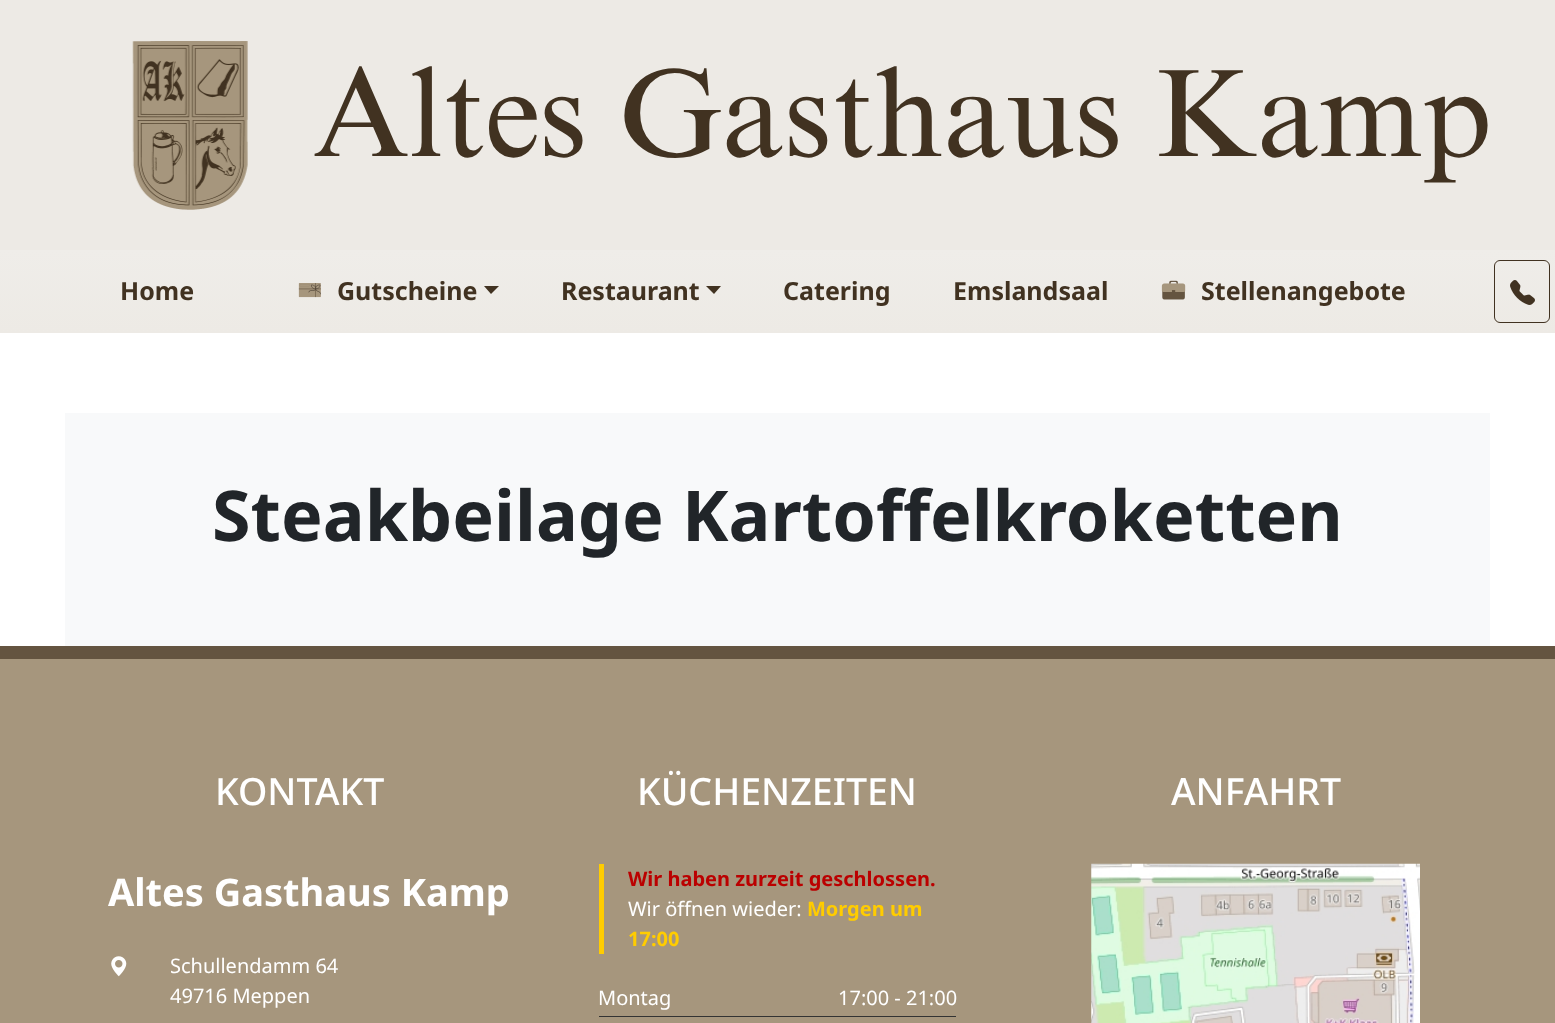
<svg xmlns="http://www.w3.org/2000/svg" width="1555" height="1023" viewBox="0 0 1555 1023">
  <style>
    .t1 { font: 125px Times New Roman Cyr; fill: #413221; }
    .t2 { font: bold 25px Noto Sans; fill: #413221; }
    .t3 { font: bold 70px Noto Sans; fill: #212529; }
    .t4 { font: 500 37.5px Noto Sans; fill: #fff; }
    .t5 { font: bold 38px Noto Sans; fill: #fff; }
    .t6 { font: 20px Noto Sans; fill: #fff; }
    .t7 { font: bold 20px Noto Sans; fill: #b00; }
    .t8 { font: bold 20px Noto Sans; fill: #fc0; }
  </style>
  <defs>
    <linearGradient id="g1" gradientUnits="userSpaceOnUse" x1="778" y1="250" x2="778" y2="333"><stop offset="0" stop-color="#efede9"/><stop offset="1" stop-color="#edeae5"/></linearGradient>
  </defs>
  <rect width="100%" height="100%" fill="#fff"/>
  <rect x="0" y="0" width="1555" height="250" fill="#edeae5"/>
  <image x="132" y="41" width="116" height="169" href="images/1.png"/>
  <text x="313" y="156" class="t1">Altes Gasthaus Kamp</text>
  <rect x="0" y="250" width="1555" height="83" fill="url(#g1)"/>
  <text x="120" y="300" class="t2">Home</text>
  <image x="298" y="283" width="23" height="15" href="images/2.png"/>
  <text x="337" y="300" class="t2">Gutscheine</text>
  <path d="M484 286H499L491 294Z" fill="#413221"/>
  <text x="561" y="300" class="t2">Restaurant</text>
  <path d="M706 286H721L714 294Z" fill="#413221"/>
  <text x="783" y="300" class="t2">Catering</text>
  <text x="953" y="300" class="t2">Emslandsaal</text>
  <image x="1161" y="280" width="25" height="20" href="images/3.png"/>
  <text x="1201" y="300" class="t2">Stellenangebote</text>
  <rect x="1494.5" y="260.5" width="55" height="62" rx="5.5" fill="none" stroke="#413221"/>
  <image x="1510" y="280" width="25" height="25" href="images/4.png"/>
  <rect x="65" y="413" width="1425" height="233" fill="#f8f9fa"/>
  <text x="212" y="541" class="t3">Steakbeilage Kartoffelkroketten</text>
  <rect x="0" y="646" width="1555" height="13" fill="#645440"/>
  <rect x="0" y="659" width="1555" height="364" fill="#a6967d"/>
  <text x="215" y="805" class="t4">KONTAKT</text>
  <text x="108" y="906" class="t5">Altes Gasthaus Kamp</text>
  <image x="111" y="956" width="16" height="21" href="images/5.png"/>
  <text x="170" y="973" class="t6">Schullendamm 64</text>
  <text x="170" y="1003" class="t6">49716 Meppen</text>
  <text x="637" y="805" class="t4">KÜCHENZEITEN</text>
  <rect x="599" y="864" width="5" height="90" fill="#fc0"/>
  <text x="628" y="886" class="t7">Wir haben zurzeit geschlossen.</text>
  <text x="628" y="916" class="t6">Wir öffnen wieder:</text>
  <text x="807" y="916" class="t8">Morgen um</text>
  <text x="628" y="946" class="t8">17:00</text>
  <rect x="599" y="1016" width="357" height="1" fill="#333"/>
  <text x="598" y="1005" class="t6">Montag</text>
  <text x="838" y="1005" class="t6">17:00 - 21:00</text>
  <text x="1171" y="805" class="t4">ANFAHRT</text>
  <image x="1091" y="863" width="329" height="160" href="images/6.png"/>
</svg>
